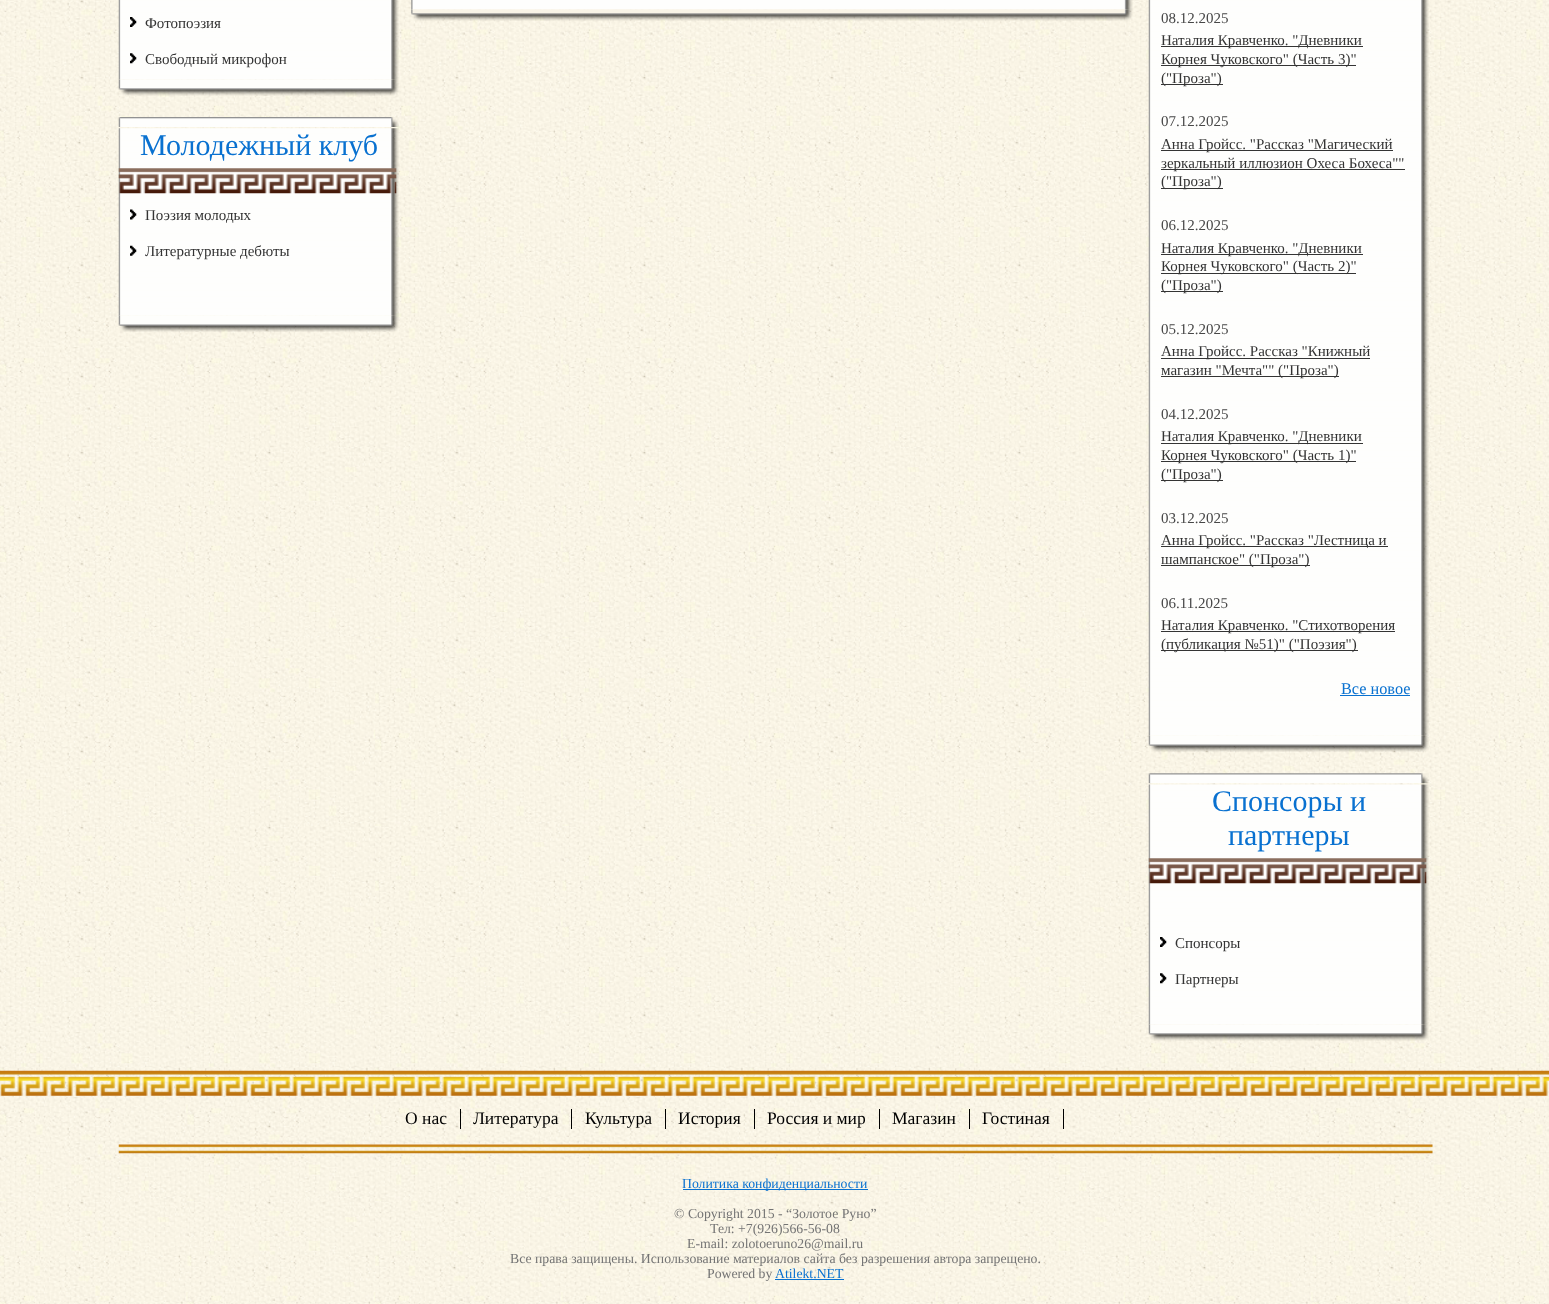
<svg xmlns="http://www.w3.org/2000/svg" width="1549" height="1304" viewBox="0 0 1549 1304">
  <style>
    .t1 { font: 15px Liberation Serif; fill: #343434; }
    .t2 { font: 30px Liberation Serif; fill: #0971d0; }
    .t3 { font: 15px Liberation Serif; fill: #474747; }
    .t4 { font: 16.25px Liberation Serif; fill: #0971d0; }
    .t5 { font: 17.5px Liberation Serif; fill: #000; }
    .t6 { font: 13.75px Liberation Serif; fill: #0971d0; }
    .t7 { font: 13.75px Liberation Serif; fill: #747474; }
  </style>
  <rect width="100%" height="100%" fill="#fff"/>
  <image x="0" y="0" width="1549" height="1304" href="images/1.png"/>
  <image x="411" y="0" width="722" height="10" href="images/2.png"/>
  <image x="411" y="9" width="722" height="12" href="images/3.png"/>
  <image x="118" y="0" width="281" height="80" href="images/4.png"/>
  <image x="130" y="17" width="7" height="10" href="images/5.png"/>
  <text x="145" y="28" class="t1">Фотопоэзия</text>
  <image x="130" y="53" width="7" height="11" href="images/6.png"/>
  <text x="145" y="64" class="t1">Свободный микрофон</text>
  <image x="118" y="79" width="281" height="17" href="images/7.png"/>
  <image x="118" y="117" width="281" height="10" href="images/8.png"/>
  <image x="118" y="128" width="281" height="188" href="images/9.png"/>
  <text x="140" y="155" class="t2">Молодежный клуб</text>
  <image x="118" y="168" width="279" height="26" href="images/10.png"/>
  <image x="130" y="209" width="7" height="11" href="images/11.png"/>
  <text x="145" y="220" class="t1">Поэзия молодых</text>
  <image x="130" y="245" width="7" height="11" href="images/12.png"/>
  <text x="145" y="256" class="t1">Литературные дебюты</text>
  <image x="118" y="315" width="281" height="17" href="images/13.png"/>
  <image x="1148" y="0" width="281" height="736" href="images/14.png"/>
  <text x="1161" y="23" class="t3">08.12.2025</text>
  <rect x="1161" y="46" width="202" height="1" fill="#343434"/>
  <text x="1161" y="45" class="t1">Наталия Кравченко. "Дневники</text>
  <rect x="1161" y="65" width="195" height="1" fill="#343434"/>
  <text x="1161" y="64" class="t1">Корнея Чуковского" (Часть 3)"</text>
  <rect x="1161" y="84" width="62" height="1" fill="#343434"/>
  <text x="1161" y="83" class="t1">("Проза")</text>
  <text x="1161" y="126" class="t3">07.12.2025</text>
  <rect x="1161" y="150" width="232" height="1" fill="#343434"/>
  <text x="1161" y="149" class="t1">Анна Гройсс. "Рассказ "Магический</text>
  <rect x="1161" y="169" width="244" height="1" fill="#343434"/>
  <text x="1161" y="168" class="t1">зеркальный иллюзион Охеса Бохеса""</text>
  <rect x="1161" y="188" width="62" height="1" fill="#343434"/>
  <text x="1161" y="186" class="t1">("Проза")</text>
  <text x="1161" y="230" class="t3">06.12.2025</text>
  <rect x="1161" y="254" width="202" height="1" fill="#343434"/>
  <text x="1161" y="253" class="t1">Наталия Кравченко. "Дневники</text>
  <rect x="1161" y="273" width="195" height="1" fill="#343434"/>
  <text x="1161" y="271" class="t1">Корнея Чуковского" (Часть 2)"</text>
  <rect x="1161" y="291" width="62" height="1" fill="#343434"/>
  <text x="1161" y="290" class="t1">("Проза")</text>
  <text x="1161" y="334" class="t3">05.12.2025</text>
  <rect x="1161" y="358" width="209" height="1" fill="#343434"/>
  <text x="1161" y="356" class="t1">Анна Гройсс. Рассказ "Книжный</text>
  <rect x="1161" y="376" width="178" height="1" fill="#343434"/>
  <text x="1161" y="375" class="t1">магазин "Мечта"" ("Проза")</text>
  <text x="1161" y="419" class="t3">04.12.2025</text>
  <rect x="1161" y="443" width="202" height="1" fill="#343434"/>
  <text x="1161" y="441" class="t1">Наталия Кравченко. "Дневники</text>
  <rect x="1161" y="461" width="195" height="1" fill="#343434"/>
  <text x="1161" y="460" class="t1">Корнея Чуковского" (Часть 1)"</text>
  <rect x="1161" y="480" width="62" height="1" fill="#343434"/>
  <text x="1161" y="479" class="t1">("Проза")</text>
  <text x="1161" y="523" class="t3">03.12.2025</text>
  <rect x="1161" y="546" width="227" height="1" fill="#343434"/>
  <text x="1161" y="545" class="t1">Анна Гройсс. "Рассказ "Лестница и</text>
  <rect x="1161" y="565" width="149" height="1" fill="#343434"/>
  <text x="1161" y="564" class="t1">шампанское" ("Проза")</text>
  <text x="1161" y="608" class="t3">06.11.2025</text>
  <rect x="1161" y="631" width="234" height="1" fill="#343434"/>
  <text x="1161" y="630" class="t1">Наталия Кравченко. "Стихотворения</text>
  <rect x="1161" y="650" width="197" height="1" fill="#343434"/>
  <text x="1161" y="649" class="t1">(публикация №51)" ("Поэзия")</text>
  <text x="1341" y="694" class="t4">Все новое</text>
  <rect x="1340" y="695" width="70" height="1" fill="#0971d0"/>
  <image x="1148" y="735" width="281" height="17" href="images/15.png"/>
  <image x="1148" y="773" width="281" height="11" href="images/16.png"/>
  <image x="1148" y="784" width="281" height="241" href="images/17.png"/>
  <text x="1212" y="811" class="t2">Спонсоры и</text>
  <text x="1228" y="845" class="t2">партнеры</text>
  <image x="1148" y="858" width="279" height="26" href="images/18.png"/>
  <image x="1160" y="937" width="7" height="10" href="images/19.png"/>
  <text x="1175" y="948" class="t1">Спонсоры</text>
  <image x="1160" y="973" width="7" height="11" href="images/20.png"/>
  <text x="1175" y="984" class="t1">Партнеры</text>
  <image x="1148" y="1024" width="281" height="17" href="images/21.png"/>
  <image x="0" y="1070" width="1549" height="26" href="images/22.png"/>
  <rect x="460" y="1109" width="1" height="20" fill="#000"/>
  <text x="405" y="1124" class="t5">О нас</text>
  <rect x="571" y="1109" width="1" height="20" fill="#000"/>
  <text x="473" y="1124" class="t5">Литература</text>
  <rect x="665" y="1109" width="1" height="20" fill="#000"/>
  <text x="585" y="1124" class="t5">Культура</text>
  <rect x="754" y="1109" width="1" height="20" fill="#000"/>
  <text x="678" y="1124" class="t5">История</text>
  <rect x="879" y="1109" width="1" height="20" fill="#000"/>
  <text x="767" y="1124" class="t5">Россия и мир</text>
  <rect x="969" y="1109" width="1" height="20" fill="#000"/>
  <text x="892" y="1124" class="t5">Магазин</text>
  <rect x="1063" y="1109" width="1" height="20" fill="#000"/>
  <text x="982" y="1124" class="t5">Гостиная</text>
  <image x="118" y="1144" width="1315" height="10" href="images/23.png"/>
  <rect x="683" y="1189" width="185" height="1" fill="#0971d0"/>
  <text x="682" y="1188" class="t6">Политика конфиденциальности</text>
  <text x="674" y="1218" class="t7">© Copyright 2015 - “Золотое Руно”</text>
  <text x="710" y="1233" class="t7">Тел: +7(926)566-56-08</text>
  <text x="687" y="1248" class="t7">E-mail: zolotoeruno26@mail.ru</text>
  <text x="510" y="1263" class="t7">Все права защищены. Использование материалов сайта без разрешения автора запрещено.</text>
  <text x="707" y="1278" class="t7">Powered by</text>
  <text x="775" y="1278" class="t6">Atilekt.NET</text>
  <rect x="775" y="1279" width="69" height="1" fill="#0971d0"/>
</svg>
